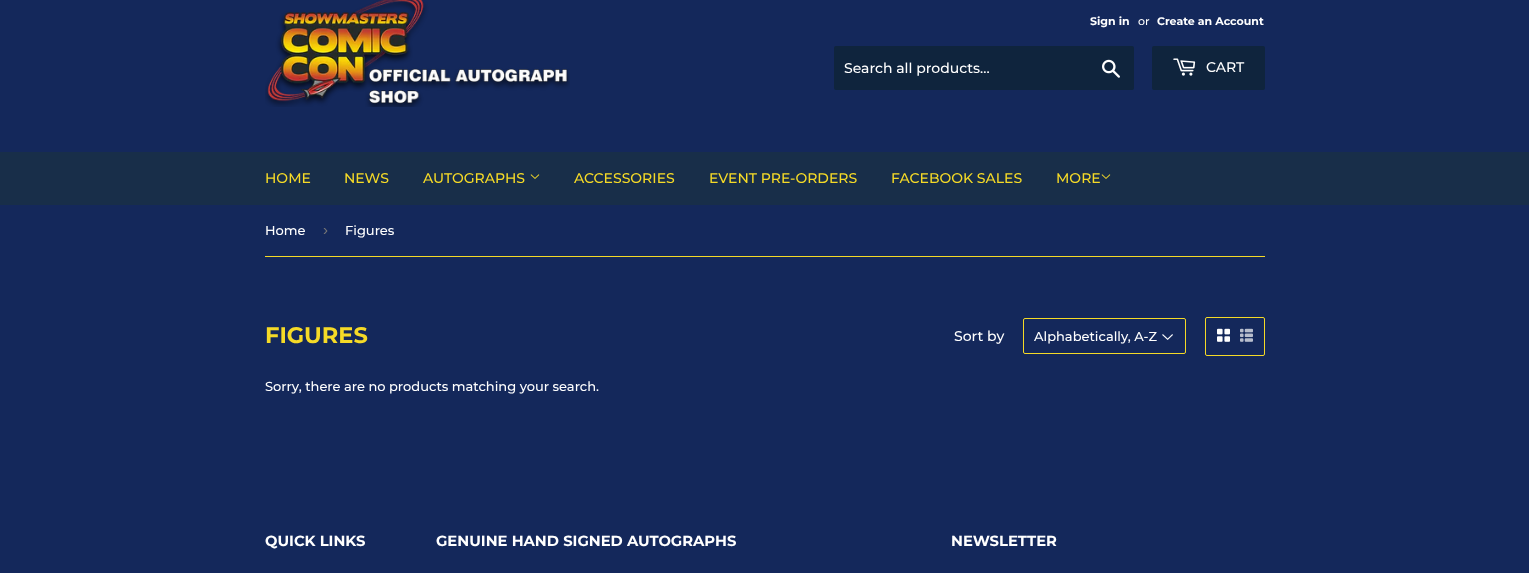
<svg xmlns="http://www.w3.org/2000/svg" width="1529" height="573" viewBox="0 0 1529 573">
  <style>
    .t1 { font: bold 11px Montserrat; fill: #fff; }
    .t2 { font: 500 11px Montserrat; fill: #fff; }
    .t3 { font: 500 14px Montserrat; fill: #fff; }
    .t4 { font: 500 14px Montserrat; fill: #f5da27; }
    .t5 { font: 500 13px Montserrat; fill: #fff; }
    .t6 { font: 15px Liberation Sans; fill: #767676; }
    .t7 { font: bold 22.5px Montserrat; fill: #f5da27; }
    .t8 { font: bold 14.75px Montserrat; fill: #fff; }
  </style>
  <rect width="100%" height="100%" fill="#14285b"/>
  <image x="265" y="0" width="305" height="107" href="images/1.png"/>
  <text x="1090" y="25" class="t1">Sign in</text>
  <text x="1138" y="25" class="t2">or</text>
  <text x="1157" y="25" class="t1">Create an Account</text>
  <rect x="834" y="46" width="300" height="44" rx="2" fill="#0f243d"/>
  <text x="844" y="73" class="t3">Search all products...</text>
  <image x="1102" y="59" width="18" height="19" href="images/2.png"/>
  <rect x="1152" y="46" width="113" height="44" rx="2" fill="#0f243d"/>
  <image x="1173" y="58" width="23" height="18" href="images/3.png"/>
  <text x="1206" y="72" class="t3">CART</text>
  <rect x="0" y="152" width="1529" height="53" fill="#182e49"/>
  <text x="265" y="183" class="t4">HOME</text>
  <text x="344" y="183" class="t4">NEWS</text>
  <text x="423" y="183" class="t4">AUTOGRAPHS</text>
  <image x="530" y="174" width="10" height="5" href="images/4.png"/>
  <text x="574" y="183" class="t4">ACCESSORIES</text>
  <text x="709" y="183" class="t4">EVENT PRE-ORDERS</text>
  <text x="891" y="183" class="t4">FACEBOOK SALES</text>
  <text x="1056" y="183" class="t4">MORE</text>
  <image x="1101" y="174" width="10" height="5" href="images/4.png"/>
  <rect x="265" y="256" width="1000" height="1" fill="#f5da27"/>
  <text x="265" y="235" class="t5">Home</text>
  <text x="323" y="235" class="t6">›</text>
  <text x="345" y="235" class="t5">Figures</text>
  <text x="265" y="343" class="t7">FIGURES</text>
  <text x="954" y="341" class="t3">Sort by</text>
  <image x="1162" y="334" width="11" height="6" href="images/5.png"/>
  <rect x="1023.5" y="318.5" width="162" height="35" rx="1.5" fill="none" stroke="#f5da27"/>
  <text x="1034" y="341" class="t5">Alphabetically, A-Z</text>
  <rect x="1205.5" y="317.5" width="59" height="38" rx="1.5" fill="none" stroke="#f5da27"/>
  <image x="1217" y="328" width="13" height="14" href="images/6.png"/>
  <image x="1240" y="328" width="13" height="14" href="images/7.png"/>
  <text x="265" y="391" class="t5">Sorry, there are no products matching your search.</text>
  <text x="265" y="546" class="t8">QUICK LINKS</text>
  <text x="436" y="546" class="t8">GENUINE HAND SIGNED AUTOGRAPHS</text>
  <text x="951" y="546" class="t8">NEWSLETTER</text>
</svg>
